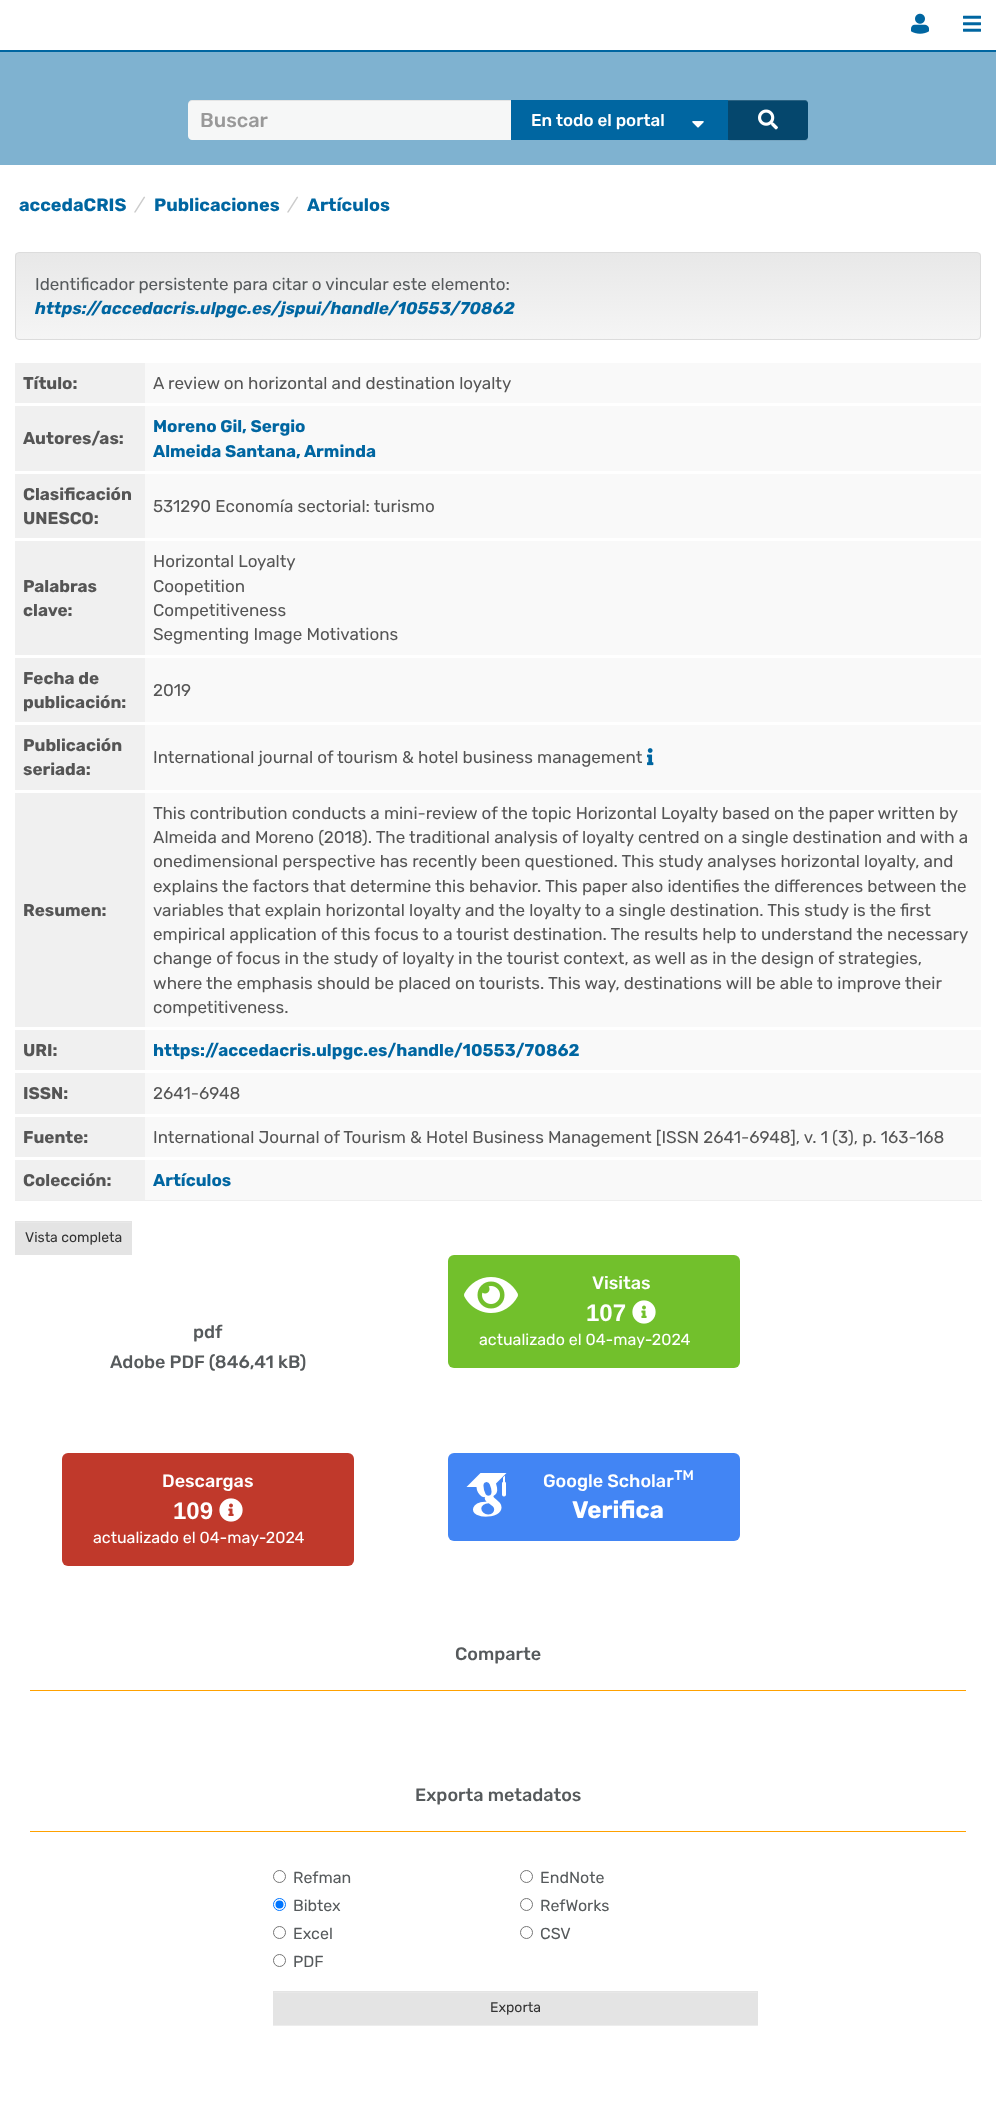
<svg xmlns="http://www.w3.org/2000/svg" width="996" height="2111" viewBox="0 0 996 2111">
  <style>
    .t1 { font: 500 20px Rubik; fill: #999; }
    .t2 { font: 500 17px Rubik; fill: #fff; }
    .t3 { font: bold 18px Rubik; fill: #0066a1; }
    .t4 { font: italic 18px Rubik; fill: #ccc; }
    .t5 { font: 17px Rubik; fill: #565a5c; }
    .t6 { font: italic bold 17px Rubik; fill: #0066a1; }
    .t7 { font: bold 17px Rubik; fill: #555; }
    .t8 { font: 17px Rubik; fill: #555; }
    .t9 { font: bold 17px Rubik; fill: #0066a1; }
    .t10 { font: 14px Rubik; fill: #333; }
    .t11 { font: 500 18px Rubik; fill: #565a5c; }
    .t12 { font: 500 18px Rubik; fill: #fff; }
    .t13 { font: bold 24px Liberation Sans; fill: #fff; }
    .t14 { font: 16px Rubik; fill: #fff; }
    .t15 { font: 500 14px Rubik; fill: #fff; }
    .t16 { font: bold 24px Rubik; fill: #fff; }
    .t17 { font: 16px Rubik; fill: #565a5c; }
  </style>
  <defs>
    <clipPath id="clip1"><rect x="15" y="252" width="966" height="88" rx="4"/></clipPath>
    <linearGradient id="g1" gradientUnits="userSpaceOnUse" x1="498" y1="253" x2="498" y2="339"><stop offset="0" stop-color="#e8e8e8"/><stop offset="1" stop-color="#f5f5f5"/></linearGradient>
  </defs>
  <rect width="100%" height="100%" fill="#fff"/>
  <rect x="0" y="50" width="996" height="2" fill="#0066a1"/>
  <image x="911" y="13" width="18" height="21" href="images/1.png"/>
  <image x="963" y="15" width="18" height="17" href="images/2.png"/>
  <rect x="0" y="52" width="996" height="113" fill="#7fb2d0"/>
  <path d="M192 100H511V140H192C190 140 188 138 188 136V104C188 102 190 100 192 100Z" fill="#f6f7f7"/>
  <path d="M192 101H511V100H192C190 100 188 102 188 104V105C188 103 190 101 192 101Z" fill="#00000012"/>
  <text x="200" y="127" class="t1">Buscar</text>
  <rect x="511" y="100" width="217" height="40" fill="#0066a1"/>
  <image x="692" y="121" width="12" height="7" href="images/3.png"/>
  <text x="531" y="126" class="t2">En todo el portal</text>
  <rect x="728" y="101" width="80" height="40" rx="3" fill="#00000012" filter="blur(0.5px)"/>
  <path d="M728 100H805C806.5 100 808 101.5 808 103V137C808 138.5 806.5 140 805 140H728Z" fill="#05476d"/>
  <path d="M728 101H805C807 101 808 102 808 104V103C808 101 807 100 805 100H728Z" fill="#ffffff26"/>
  <image x="758" y="109" width="20" height="21" href="images/4.png"/>
  <text x="19" y="211" class="t3">accedaCRIS</text>
  <text x="135" y="211" class="t4">/</text>
  <text x="154" y="211" class="t3">Publicaciones</text>
  <text x="288" y="211" class="t4">/</text>
  <text x="307" y="211" class="t3">Artículos</text>
  <g clip-path="url(#clip1)">
    <rect x="15" y="253" width="966" height="86" fill="url(#g1)"/>
  </g>
  <rect x="15.5" y="252.5" width="965" height="87" rx="3.5" fill="none" stroke="#dcdcdc"/>
  <text x="35" y="290" class="t5">Identificador persistente para citar o vincular este elemento:</text>
  <text x="35" y="314" class="t6">https://accedacris.ulpgc.es/jspui/handle/10553/70862</text>
  <rect x="15" y="363" width="130" height="40" fill="#f0f0f0"/>
  <text x="23" y="389" class="t7">Título:</text>
  <rect x="145" y="363" width="836" height="40" fill="#f9f9f9"/>
  <text x="153" y="389" class="t8">A review on horizontal and destination loyalty</text>
  <rect x="15" y="406" width="130" height="65" fill="#f0f0f0"/>
  <text x="23" y="444" class="t7">Autores/as:</text>
  <rect x="145" y="406" width="836" height="65" fill="#f9f9f9"/>
  <text x="153" y="432" class="t9">Moreno Gil, Sergio</text>
  <text x="153" y="457" class="t9">Almeida Santana, Arminda</text>
  <rect x="15" y="474" width="130" height="64" fill="#f0f0f0"/>
  <text x="23" y="500" class="t7">Clasificación</text>
  <text x="23" y="524" class="t7">UNESCO:</text>
  <rect x="145" y="474" width="836" height="64" fill="#f9f9f9"/>
  <text x="153" y="512" class="t8">531290 Economía sectorial: turismo</text>
  <rect x="15" y="541" width="130" height="114" fill="#f0f0f0"/>
  <text x="23" y="592" class="t7">Palabras</text>
  <text x="23" y="616" class="t7">clave:</text>
  <rect x="145" y="541" width="836" height="114" fill="#f9f9f9"/>
  <text x="153" y="567" class="t8">Horizontal Loyalty</text>
  <text x="153" y="592" class="t8">Coopetition</text>
  <text x="153" y="616" class="t8">Competitiveness</text>
  <text x="153" y="640" class="t8">Segmenting Image Motivations</text>
  <rect x="15" y="658" width="130" height="64" fill="#f0f0f0"/>
  <text x="23" y="684" class="t7">Fecha de</text>
  <text x="23" y="708" class="t7">publicación:</text>
  <rect x="145" y="658" width="836" height="64" fill="#f9f9f9"/>
  <text x="153" y="696" class="t8">2019</text>
  <rect x="15" y="725" width="130" height="65" fill="#f0f0f0"/>
  <text x="23" y="751" class="t7">Publicación</text>
  <text x="23" y="775" class="t7">seriada:</text>
  <rect x="145" y="725" width="836" height="65" fill="#f9f9f9"/>
  <text x="153" y="763" class="t8">International journal of tourism &amp; hotel business management</text>
  <image x="647" y="748" width="7" height="18" href="images/5.png"/>
  <rect x="15" y="793" width="130" height="234" fill="#f0f0f0"/>
  <text x="23" y="916" class="t7">Resumen:</text>
  <rect x="145" y="793" width="836" height="234" fill="#f9f9f9"/>
  <text x="153" y="819" class="t8">This contribution conducts a mini-review of the topic Horizontal Loyalty based on the paper written by</text>
  <text x="153" y="843" class="t8">Almeida and Moreno (2018). The traditional analysis of loyalty centred on a single destination and with a</text>
  <text x="153" y="867" class="t8">onedimensional perspective has recently been questioned. This study analyses horizontal loyalty, and</text>
  <text x="153" y="892" class="t8">explains the factors that determine this behavior. This paper also identifies the differences between the</text>
  <text x="153" y="916" class="t8">variables that explain horizontal loyalty and the loyalty to a single destination. This study is the first</text>
  <text x="153" y="940" class="t8">empirical application of this focus to a tourist destination. The results help to understand the necessary</text>
  <text x="153" y="964" class="t8">change of focus in the study of loyalty in the tourist context, as well as in the design of strategies,</text>
  <text x="153" y="989" class="t8">where the emphasis should be placed on tourists. This way, destinations will be able to improve their</text>
  <text x="153" y="1013" class="t8">competitiveness.</text>
  <rect x="15" y="1030" width="130" height="40" fill="#f0f0f0"/>
  <text x="23" y="1056" class="t7">URI:</text>
  <rect x="145" y="1030" width="836" height="40" fill="#f9f9f9"/>
  <text x="153" y="1056" class="t9">https://accedacris.ulpgc.es/handle/10553/70862</text>
  <rect x="15" y="1073" width="130" height="41" fill="#f0f0f0"/>
  <text x="23" y="1099" class="t7">ISSN:</text>
  <rect x="145" y="1073" width="836" height="41" fill="#f9f9f9"/>
  <text x="153" y="1099" class="t8">2641-6948</text>
  <rect x="15" y="1117" width="130" height="40" fill="#f0f0f0"/>
  <text x="23" y="1143" class="t7">Fuente:</text>
  <rect x="145" y="1117" width="836" height="40" fill="#f9f9f9"/>
  <text x="153" y="1143" class="t8">International Journal of Tourism &amp; Hotel Business Management [ISSN 2641-6948], v. 1 (3), p. 163-168</text>
  <rect x="15" y="1200" width="967" height="1" fill="#eee"/>
  <rect x="15" y="1160" width="130" height="40" fill="#f0f0f0"/>
  <text x="23" y="1186" class="t7">Colección:</text>
  <rect x="145" y="1160" width="836" height="40" fill="#f9f9f9"/>
  <text x="153" y="1186" class="t9">Artículos</text>
  <rect x="15" y="1221" width="117" height="34" fill="#e4e4e4"/>
  <rect x="16" y="1222" width="115" height="1" fill="#e8e8e8"/>
  <text x="25" y="1242" class="t10">Vista completa</text>
  <text x="193" y="1338" class="t11">pdf</text>
  <text x="110" y="1368" class="t11">Adobe PDF (846,41 kB)</text>
  <rect x="448" y="1255" width="292" height="113" rx="6" fill="#72c02c"/>
  <image x="464" y="1277" width="54" height="36" href="images/6.png"/>
  <text x="592" y="1289" class="t12">Visitas</text>
  <text x="586" y="1321" class="t13">107</text>
  <image x="632" y="1300" width="24" height="24" href="images/7.png"/>
  <text x="479" y="1345" class="t14">actualizado el 04-may-2024</text>
  <rect x="62" y="1453" width="292" height="113" rx="6" fill="#c0392b"/>
  <text x="162" y="1487" class="t12">Descargas</text>
  <text x="173" y="1519" class="t13">109</text>
  <image x="219" y="1498" width="24" height="24" href="images/8.png"/>
  <text x="93" y="1543" class="t14">actualizado el 04-may-2024</text>
  <rect x="448" y="1453" width="292" height="88" rx="6" fill="#4285f4"/>
  <image x="466" y="1473" width="41" height="44" href="images/9.png"/>
  <text x="543" y="1487" class="t12">Google Scholar</text>
  <text x="674" y="1480" class="t15">TM</text>
  <text x="572" y="1518" class="t16">Verifica</text>
  <text x="455" y="1660" class="t11">Comparte</text>
  <rect x="30" y="1690" width="936" height="1" fill="#ffa100"/>
  <text x="415" y="1801" class="t11">Exporta metadatos</text>
  <rect x="30" y="1831" width="936" height="1" fill="#ffa100"/>
  <circle cx="279.5" cy="1876.5" r="6" fill="none" stroke="#767676"/>
  <text x="293" y="1883" class="t17">Refman</text>
  <circle cx="526.5" cy="1876.5" r="6" fill="none" stroke="#767676"/>
  <text x="540" y="1883" class="t17">EndNote</text>
  <circle cx="279.5" cy="1904.5" r="6" fill="none" stroke="#0075ff"/>
  <circle cx="279.5" cy="1904.5" r="4" fill="#0075ff"/>
  <text x="293" y="1911" class="t17">Bibtex</text>
  <circle cx="526.5" cy="1904.5" r="6" fill="none" stroke="#767676"/>
  <text x="540" y="1911" class="t17">RefWorks</text>
  <circle cx="279.5" cy="1932.5" r="6" fill="none" stroke="#767676"/>
  <text x="293" y="1939" class="t17">Excel</text>
  <circle cx="526.5" cy="1932.5" r="6" fill="none" stroke="#767676"/>
  <text x="540" y="1939" class="t17">CSV</text>
  <circle cx="279.5" cy="1960.5" r="6" fill="none" stroke="#767676"/>
  <text x="293" y="1967" class="t17">PDF</text>
  <rect x="273" y="1992" width="485" height="34" fill="#00000012" filter="blur(0.5px)"/>
  <rect x="273" y="1991" width="485" height="34" fill="#e4e4e4"/>
  <rect x="274" y="1992" width="483" height="1" fill="#e8e8e8"/>
  <text x="490" y="2012" class="t10">Exporta</text>
</svg>
